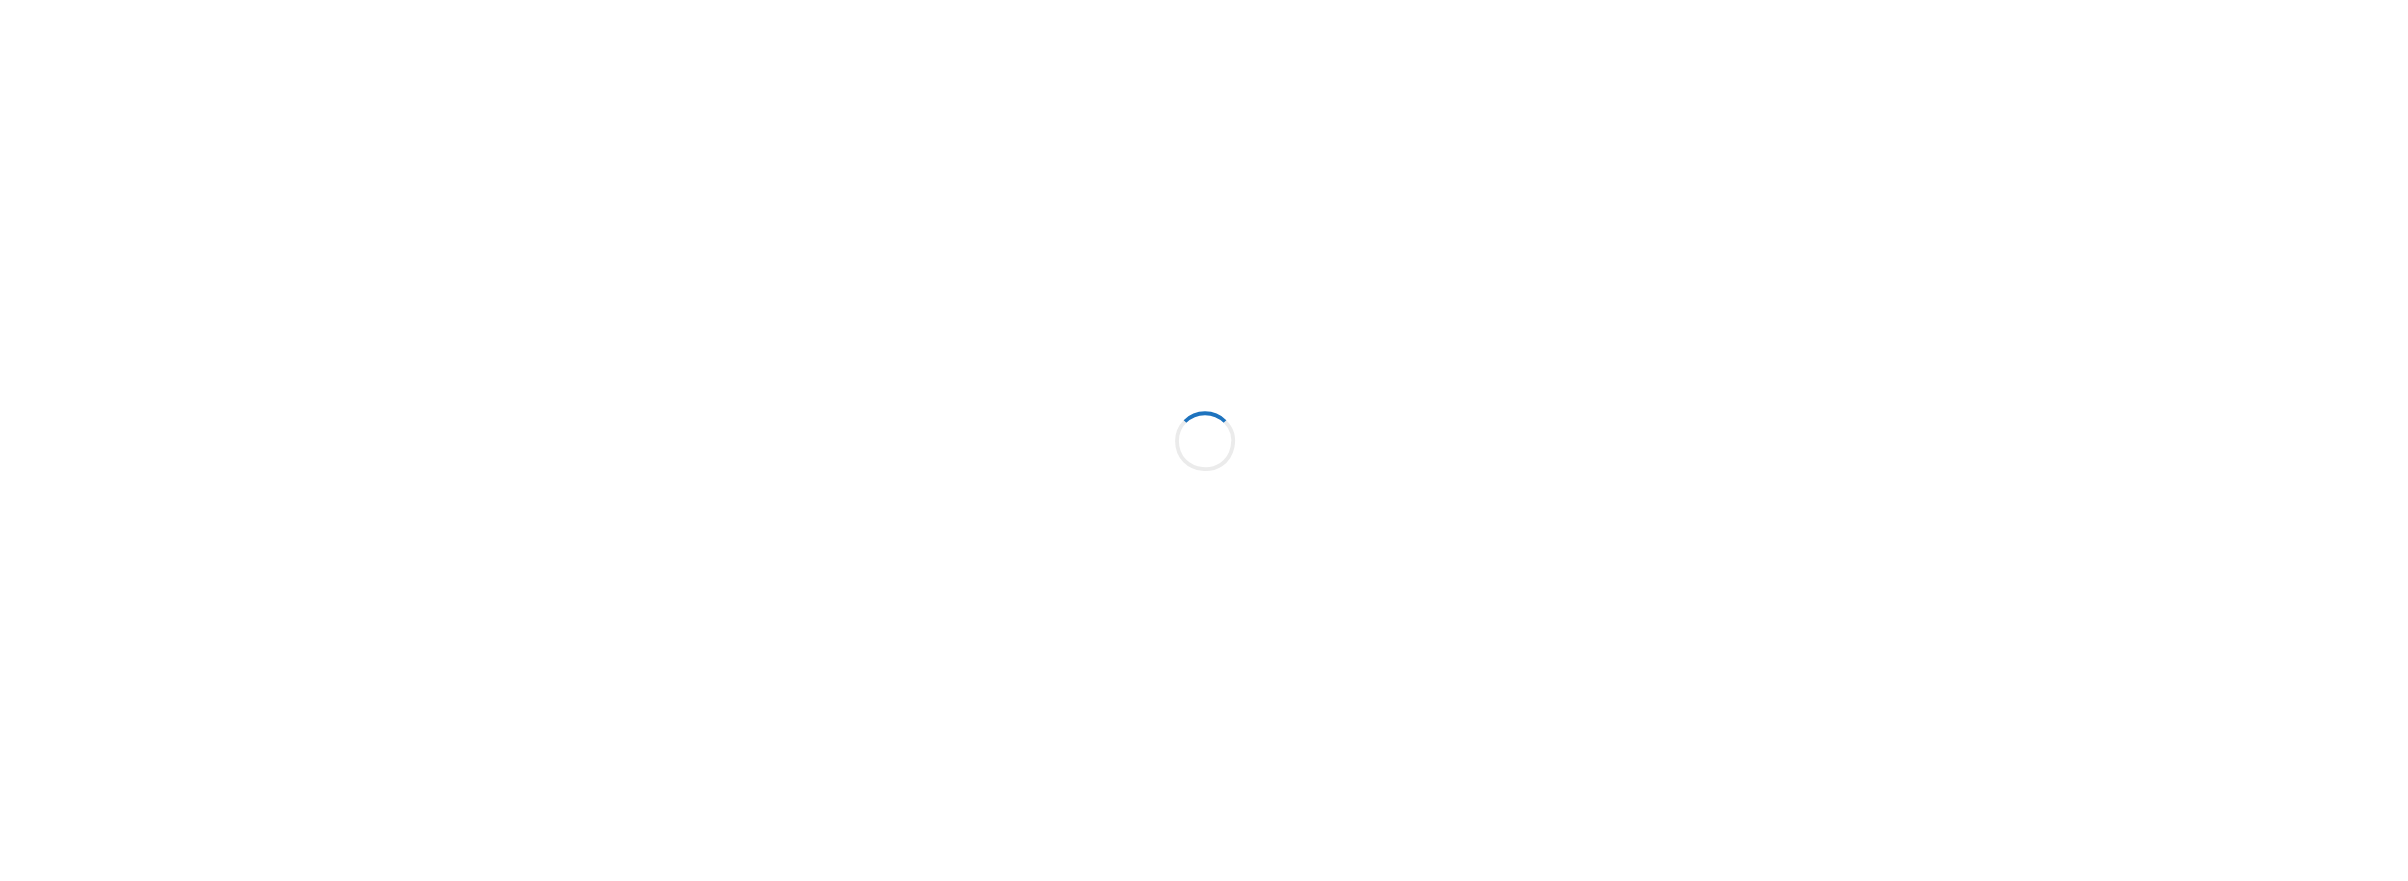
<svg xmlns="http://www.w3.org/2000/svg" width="2408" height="881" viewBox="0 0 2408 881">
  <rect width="100%" height="100%" fill="#fff"/>
  <path d="M1185 421.5C1196 410.5 1214 410.5 1225 421.5" fill="none" stroke="#1e73be" stroke-width="3.8"/>
  <path d="M1225 421.5C1231.5 428 1234.5 437.5 1232.5 447C1226 479.5 1177 475 1177 441C1177 434 1180 426.5 1185 421.5" fill="none" stroke="#99999933" stroke-width="3.8"/>
</svg>
